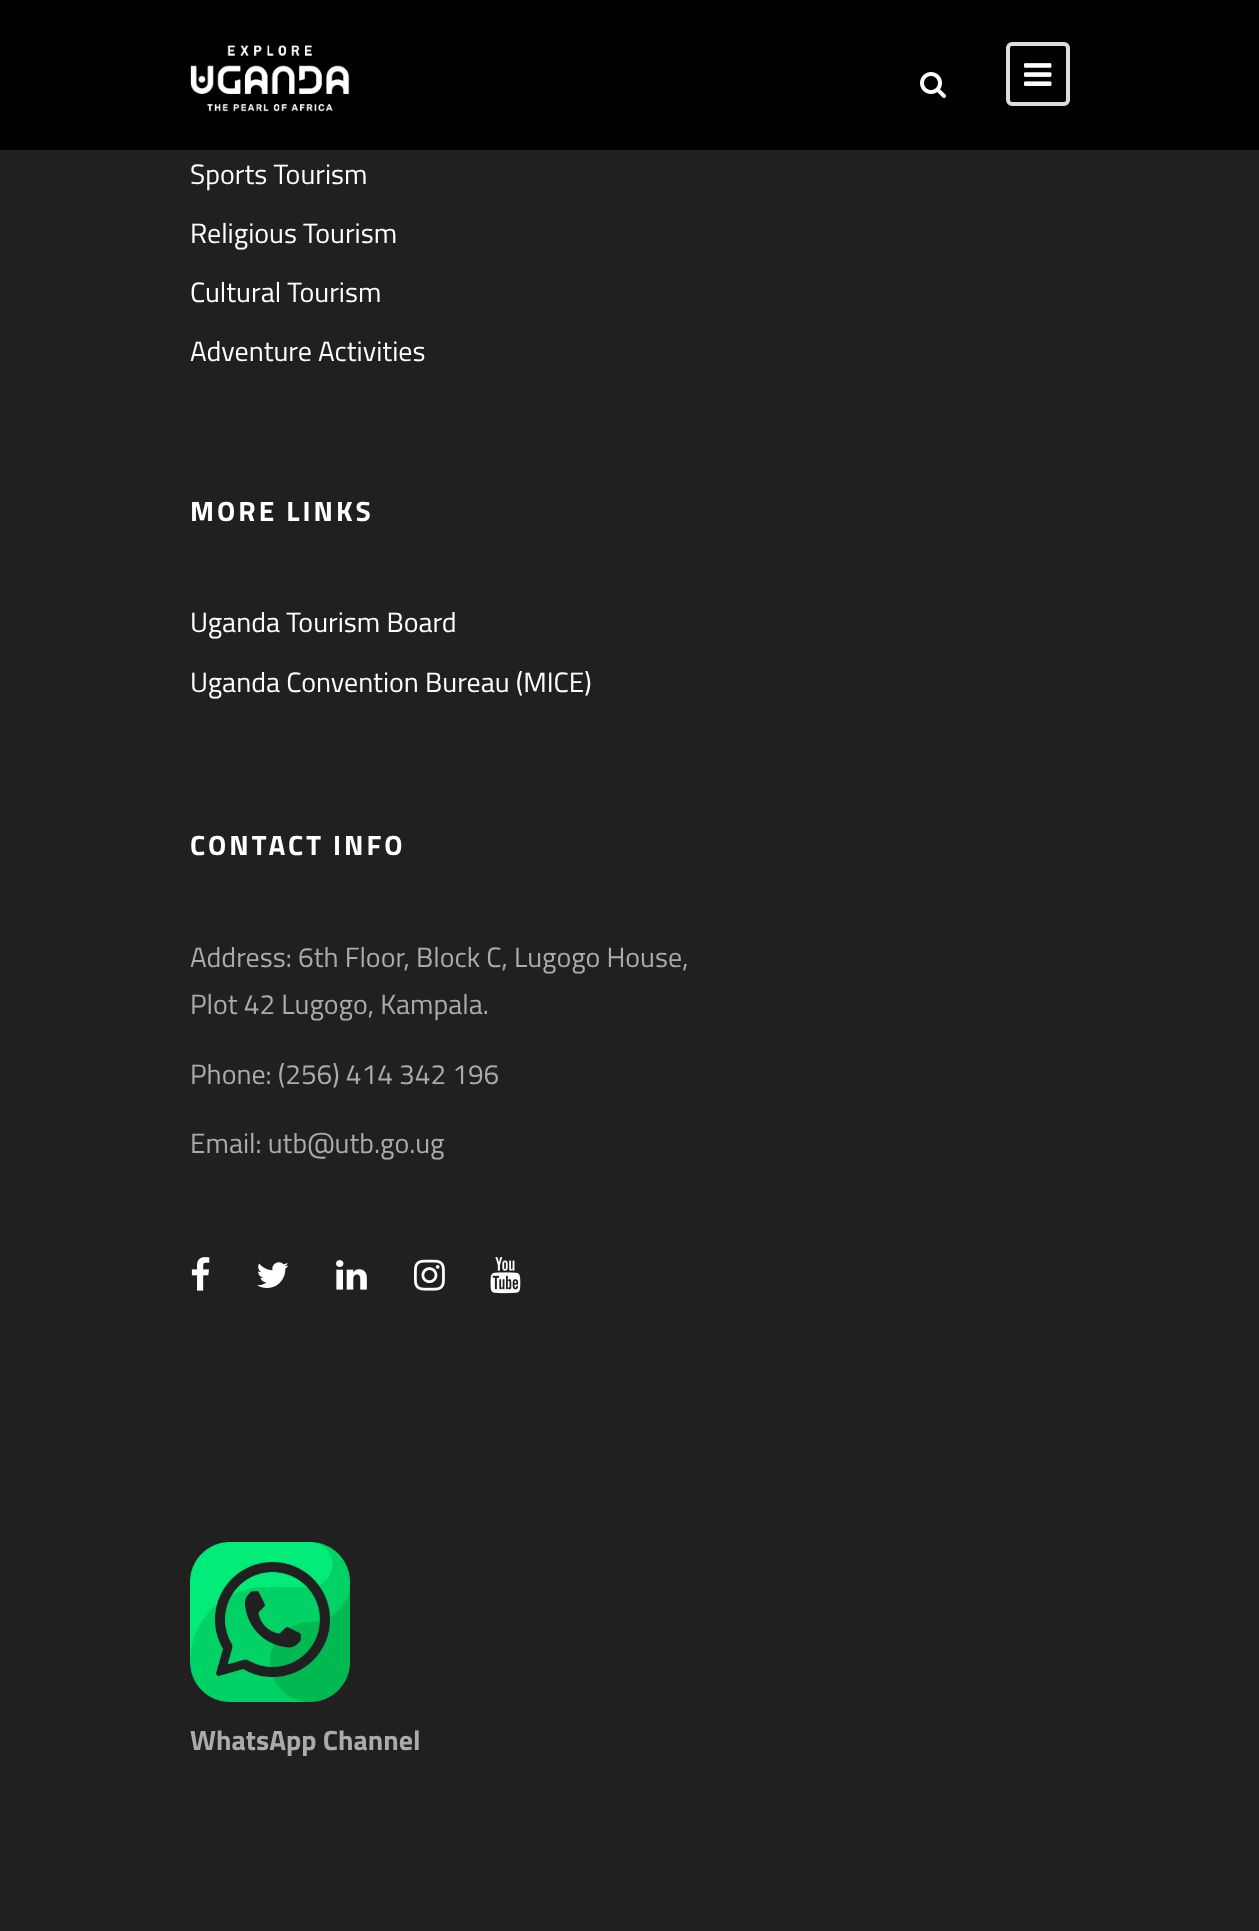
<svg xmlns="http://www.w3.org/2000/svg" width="1259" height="1931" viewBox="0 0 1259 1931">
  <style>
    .t1 { font: 28px Titillium Web; fill: #fff; }
    .t2 { font: bold 28px Titillium Web; letter-spacing: 3px; fill: #fff; }
    .t3 { font: 28px Titillium Web; fill: #ababab; }
    .t4 { font: bold 28px Titillium Web; fill: #ababab; }
  </style>
  <rect width="100%" height="100%" fill="#202020"/>
  <rect x="0" y="0" width="1259" height="150" fill="#000"/>
  <image x="190" y="45" width="160" height="67" href="images/1.png"/>
  <image x="920" y="72" width="26" height="26" href="images/2.png"/>
  <rect x="1008" y="44" width="60" height="60" rx="4" fill="none" stroke="#ddd" stroke-width="4"/>
  <image x="1024" y="63" width="28" height="23" href="images/3.png"/>
  <text x="190" y="184" class="t1">Sports Tourism</text>
  <text x="190" y="243" class="t1">Religious Tourism</text>
  <text x="190" y="302" class="t1">Cultural Tourism</text>
  <text x="190" y="361" class="t1">Adventure Activities</text>
  <text x="190" y="521" class="t2">MORE LINKS</text>
  <text x="190" y="632" class="t1">Uganda Tourism Board</text>
  <text x="190" y="692" class="t1">Uganda Convention Bureau (MICE)</text>
  <text x="190" y="855" class="t2">CONTACT INFO</text>
  <text x="190" y="967" class="t3">Address: 6th Floor, Block C, Lugogo House,</text>
  <text x="190" y="1014" class="t3">Plot 42 Lugogo, Kampala.</text>
  <text x="190" y="1084" class="t3">Phone: (256) 414 342 196</text>
  <text x="190" y="1153" class="t3">Email: utb@utb.go.ug</text>
  <image x="191" y="1257" width="19" height="34" href="images/4.png"/>
  <image x="257" y="1262" width="32" height="26" href="images/5.png"/>
  <image x="336" y="1260" width="31" height="30" href="images/6.png"/>
  <image x="414" y="1259" width="31" height="32" href="images/7.png"/>
  <image x="490" y="1257" width="31" height="37" href="images/8.png"/>
  <image x="190" y="1542" width="160" height="160" href="images/9.png"/>
  <text x="190" y="1750" class="t4">WhatsApp Channel</text>
</svg>
